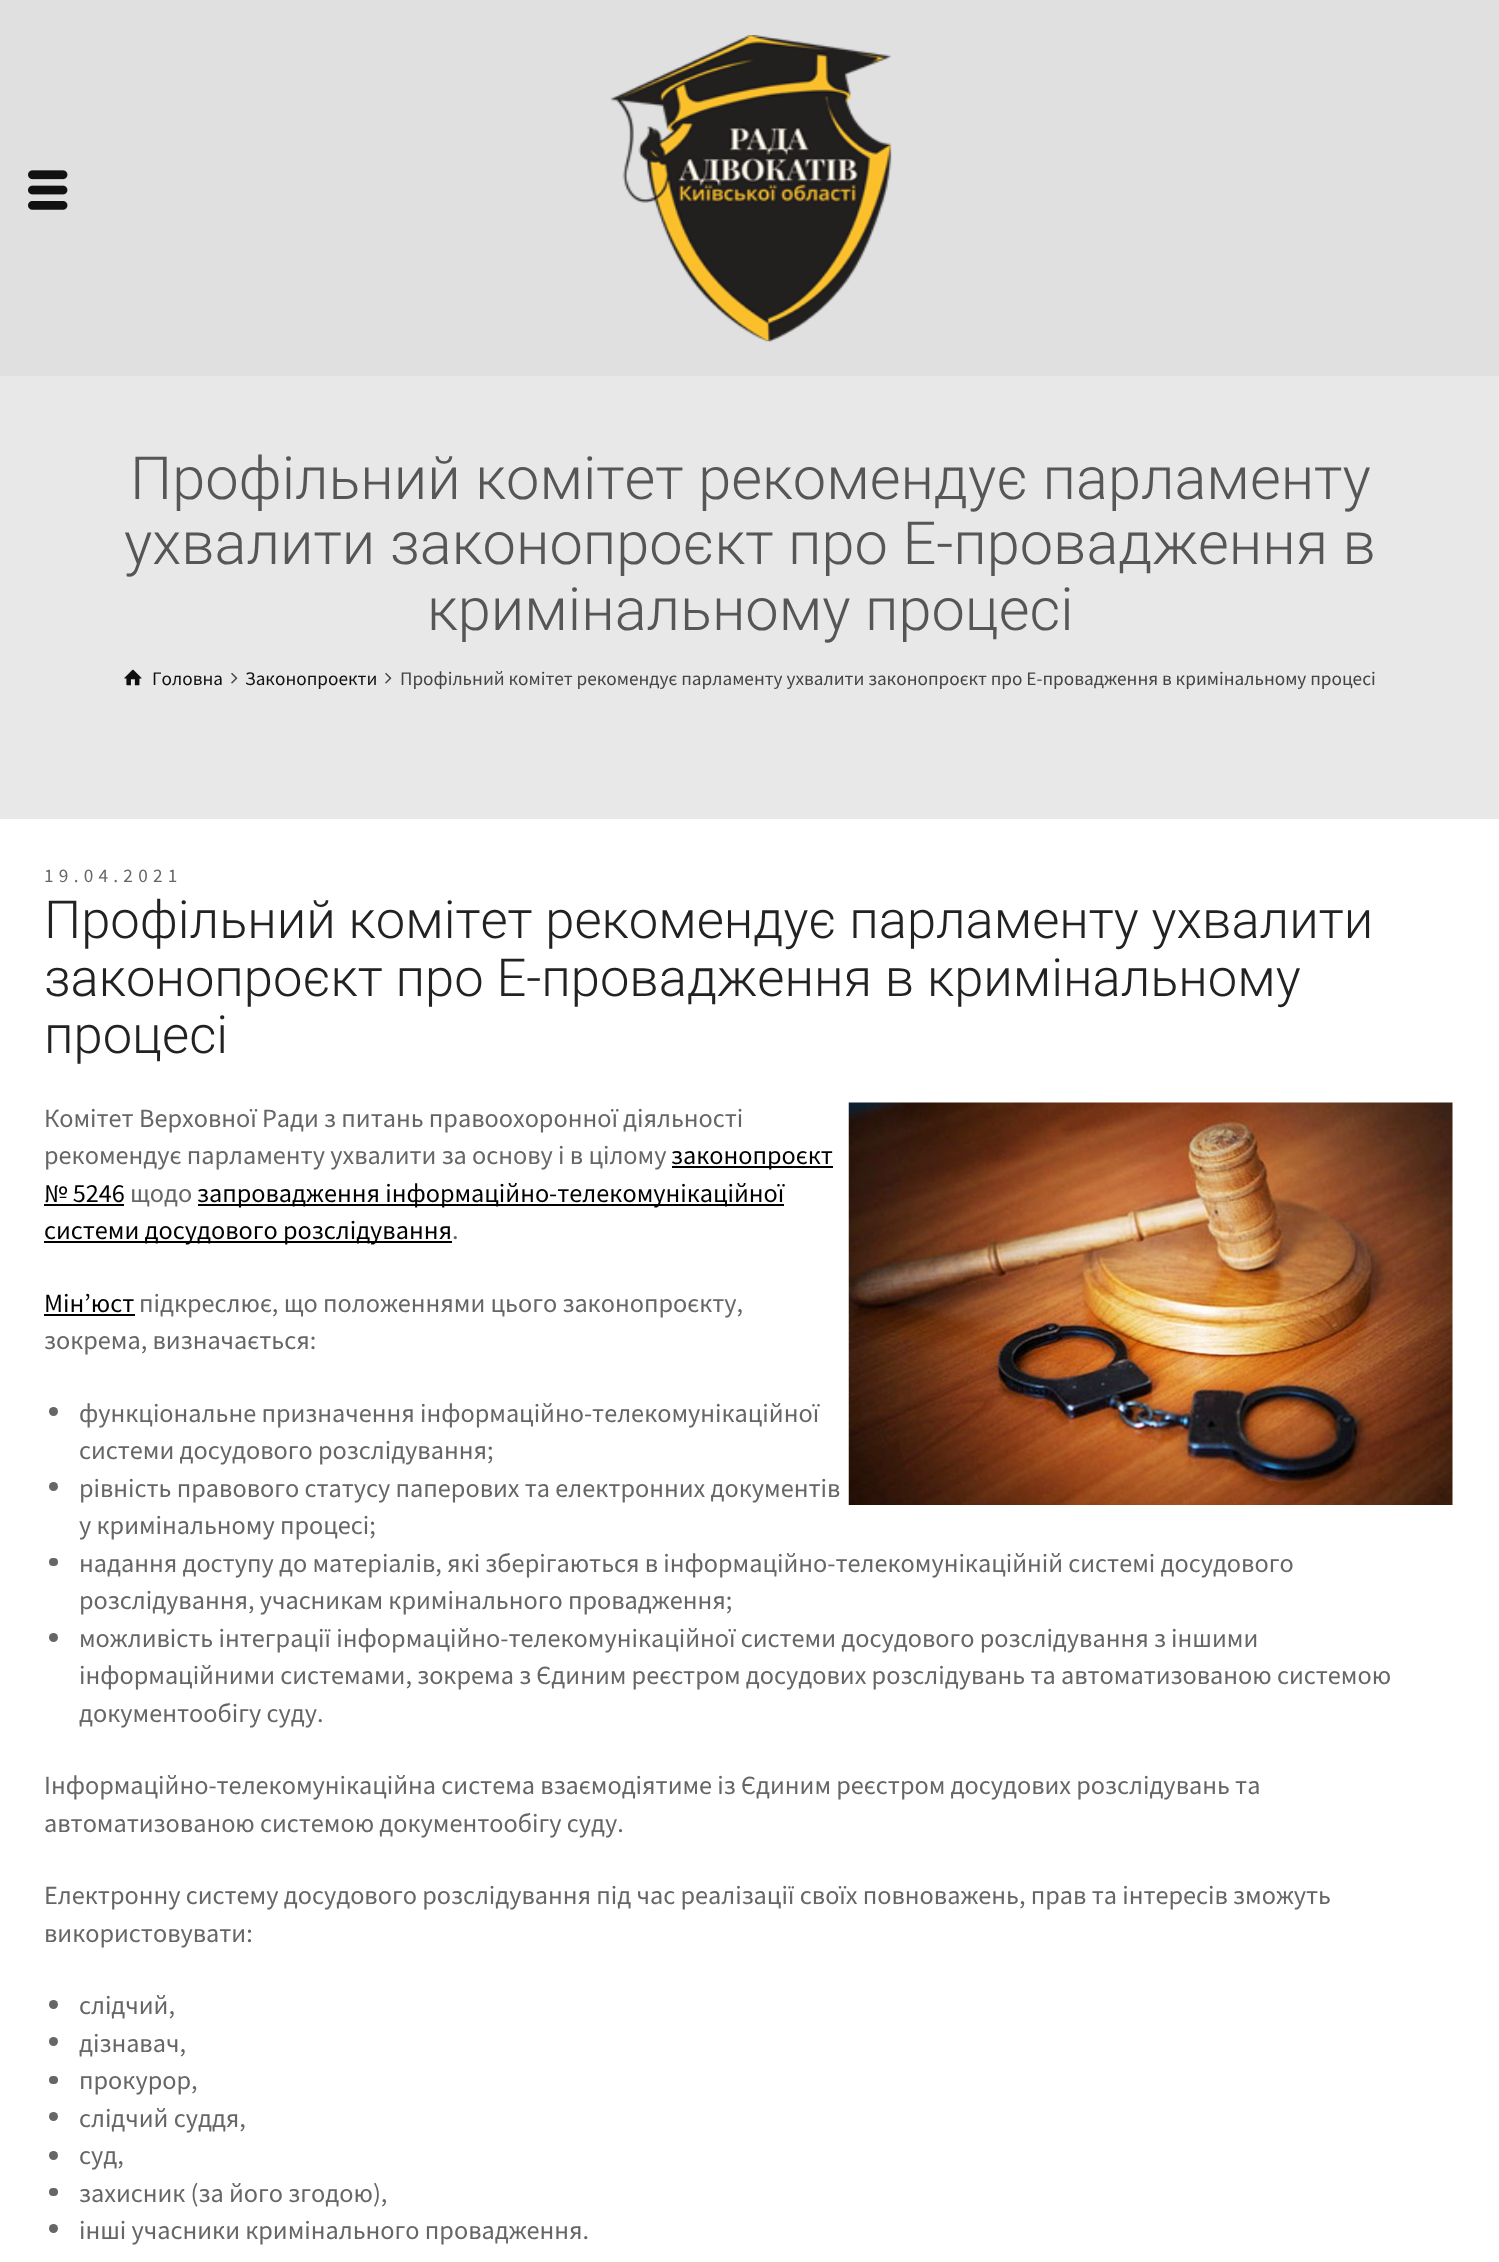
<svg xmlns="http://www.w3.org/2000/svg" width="1499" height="2262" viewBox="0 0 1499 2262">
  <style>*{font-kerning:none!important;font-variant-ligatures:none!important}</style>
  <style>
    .t1 { font: 300 59.5px Roboto; fill: #565656; }
    .t2 { font: 19.25px Source Sans Pro; fill: #0f0f0f; }
    .t3 { font: 19.25px Source Sans Pro; fill: #444; }
    .t4 { font: 19.25px Source Sans Pro; letter-spacing: 5.25px; fill: #666; }
    .t5 { font: 300 52.5px Roboto; fill: #222; }
    .t6 { font: 26.25px Source Sans Pro; fill: #666; }
    .t7 { font: 26.25px Source Sans Pro; fill: #000; }
  </style>
  <rect width="100%" height="100%" fill="#e0e0e0"/>
  <image x="28" y="170" width="40" height="40" href="images/1.png"/>
  <image x="610" y="35" width="282" height="307" href="images/2.png"/>
  <rect x="0" y="376" width="1499" height="443" fill="#e8e8e8"/>
  <text x="130" y="499" class="t1">Профільний комітет рекомендує парламенту</text>
  <text x="124" y="564" class="t1">ухвалити законопроєкт про Е-провадження в</text>
  <text x="427" y="630" class="t1">кримінальному процесі</text>
  <image x="124" y="669" width="18" height="17" href="images/3.png"/>
  <text x="152" y="685" class="t2">Головна</text>
  <image x="231" y="672" width="7" height="12" href="images/4.png"/>
  <text x="245" y="685" class="t2">Законопроекти</text>
  <image x="385" y="672" width="7" height="12" href="images/4.png"/>
  <text x="400" y="685" class="t3">Профільний комітет рекомендує парламенту ухвалити законопроєкт про Е-провадження в кримінальному процесі</text>
  <rect x="0" y="819" width="1499" height="1443" fill="#fff"/>
  <text x="44" y="882" class="t4">19.04.2021</text>
  <text x="44" y="938" class="t5">Профільний комітет рекомендує парламенту ухвалити</text>
  <text x="44" y="996" class="t5">законопроєкт про Е-провадження в кримінальному</text>
  <text x="44" y="1053" class="t5">процесі</text>
  <text x="44" y="1127" class="t6">Комітет Верховної Ради з питань правоохоронної діяльності</text>
  <image x="848" y="1102" width="605" height="403" href="images/5.png"/>
  <text x="44" y="1164" class="t6">рекомендує парламенту ухвалити за основу і в цілому</text>
  <rect x="672" y="1166" width="161" height="2" fill="#000"/>
  <text x="671" y="1164" class="t7">законопроєкт</text>
  <text x="44" y="1202" class="t7">№ 5246</text>
  <rect x="44" y="1204" width="80" height="2" fill="#000"/>
  <text x="130" y="1202" class="t6">щодо</text>
  <rect x="198" y="1204" width="586" height="2" fill="#000"/>
  <text x="197" y="1202" class="t7">запровадження інформаційно-телекомунікаційної</text>
  <rect x="44" y="1241" width="408" height="2" fill="#000"/>
  <text x="44" y="1239" class="t7">системи досудового розслідування</text>
  <text x="452" y="1239" class="t6">.</text>
  <text x="44" y="1312" class="t7">Мін’юст</text>
  <rect x="44" y="1314" width="91" height="2" fill="#000"/>
  <text x="139" y="1312" class="t6">підкреслює, що положеннями цього законопроєкту,</text>
  <text x="44" y="1349" class="t6">зокрема, визначається:</text>
  <circle cx="53.5" cy="1411.5" r="4.5" fill="#666"/>
  <text x="79" y="1422" class="t6">функціональне призначення інформаційно-телекомунікаційної</text>
  <text x="79" y="1459" class="t6">системи досудового розслідування;</text>
  <circle cx="53.5" cy="1486.5" r="4.5" fill="#666"/>
  <text x="79" y="1497" class="t6">рівність правового статусу паперових та електронних документів</text>
  <text x="79" y="1534" class="t6">у кримінальному процесі;</text>
  <rect x="49" y="1558" width="9" height="8" rx="4" fill="#666"/>
  <text x="79" y="1572" class="t6">надання доступу до матеріалів, які зберігаються в інформаційно-телекомунікаційній системі досудового</text>
  <text x="79" y="1609" class="t6">розслідування, учасникам кримінального провадження;</text>
  <circle cx="53.5" cy="1637.5" r="4.5" fill="#666"/>
  <text x="79" y="1647" class="t6">можливість інтеграції інформаційно-телекомунікаційної системи досудового розслідування з іншими</text>
  <text x="79" y="1684" class="t6">інформаційними системами, зокрема з Єдиним реєстром досудових розслідувань та автоматизованою системою</text>
  <text x="79" y="1722" class="t6">документообігу суду.</text>
  <text x="44" y="1794" class="t6">Інформаційно-телекомунікаційна система взаємодіятиме із Єдиним реєстром досудових розслідувань та</text>
  <text x="44" y="1832" class="t6">автоматизованою системою документообігу суду.</text>
  <text x="44" y="1904" class="t6">Електронну систему досудового розслідування під час реалізації своїх повноважень, прав та інтересів зможуть</text>
  <text x="44" y="1942" class="t6">використовувати:</text>
  <circle cx="53.5" cy="2004.5" r="4.5" fill="#666"/>
  <text x="79" y="2014" class="t6">слідчий,</text>
  <circle cx="53.5" cy="2041.5" r="4.5" fill="#666"/>
  <text x="79" y="2052" class="t6">дізнавач,</text>
  <rect x="49" y="2076" width="9" height="8" rx="4" fill="#666"/>
  <text x="79" y="2089" class="t6">прокурор,</text>
  <circle cx="53.5" cy="2116.5" r="4.5" fill="#666"/>
  <text x="79" y="2127" class="t6">слідчий суддя,</text>
  <circle cx="53.5" cy="2155.5" r="4.5" fill="#666"/>
  <text x="79" y="2164" class="t6">суд,</text>
  <rect x="49" y="2188" width="9" height="8" rx="4" fill="#666"/>
  <text x="79" y="2202" class="t6">захисник (за його згодою),</text>
  <circle cx="53.5" cy="2228.5" r="4.5" fill="#666"/>
  <text x="79" y="2239" class="t6">інші учасники кримінального провадження.</text>
</svg>
